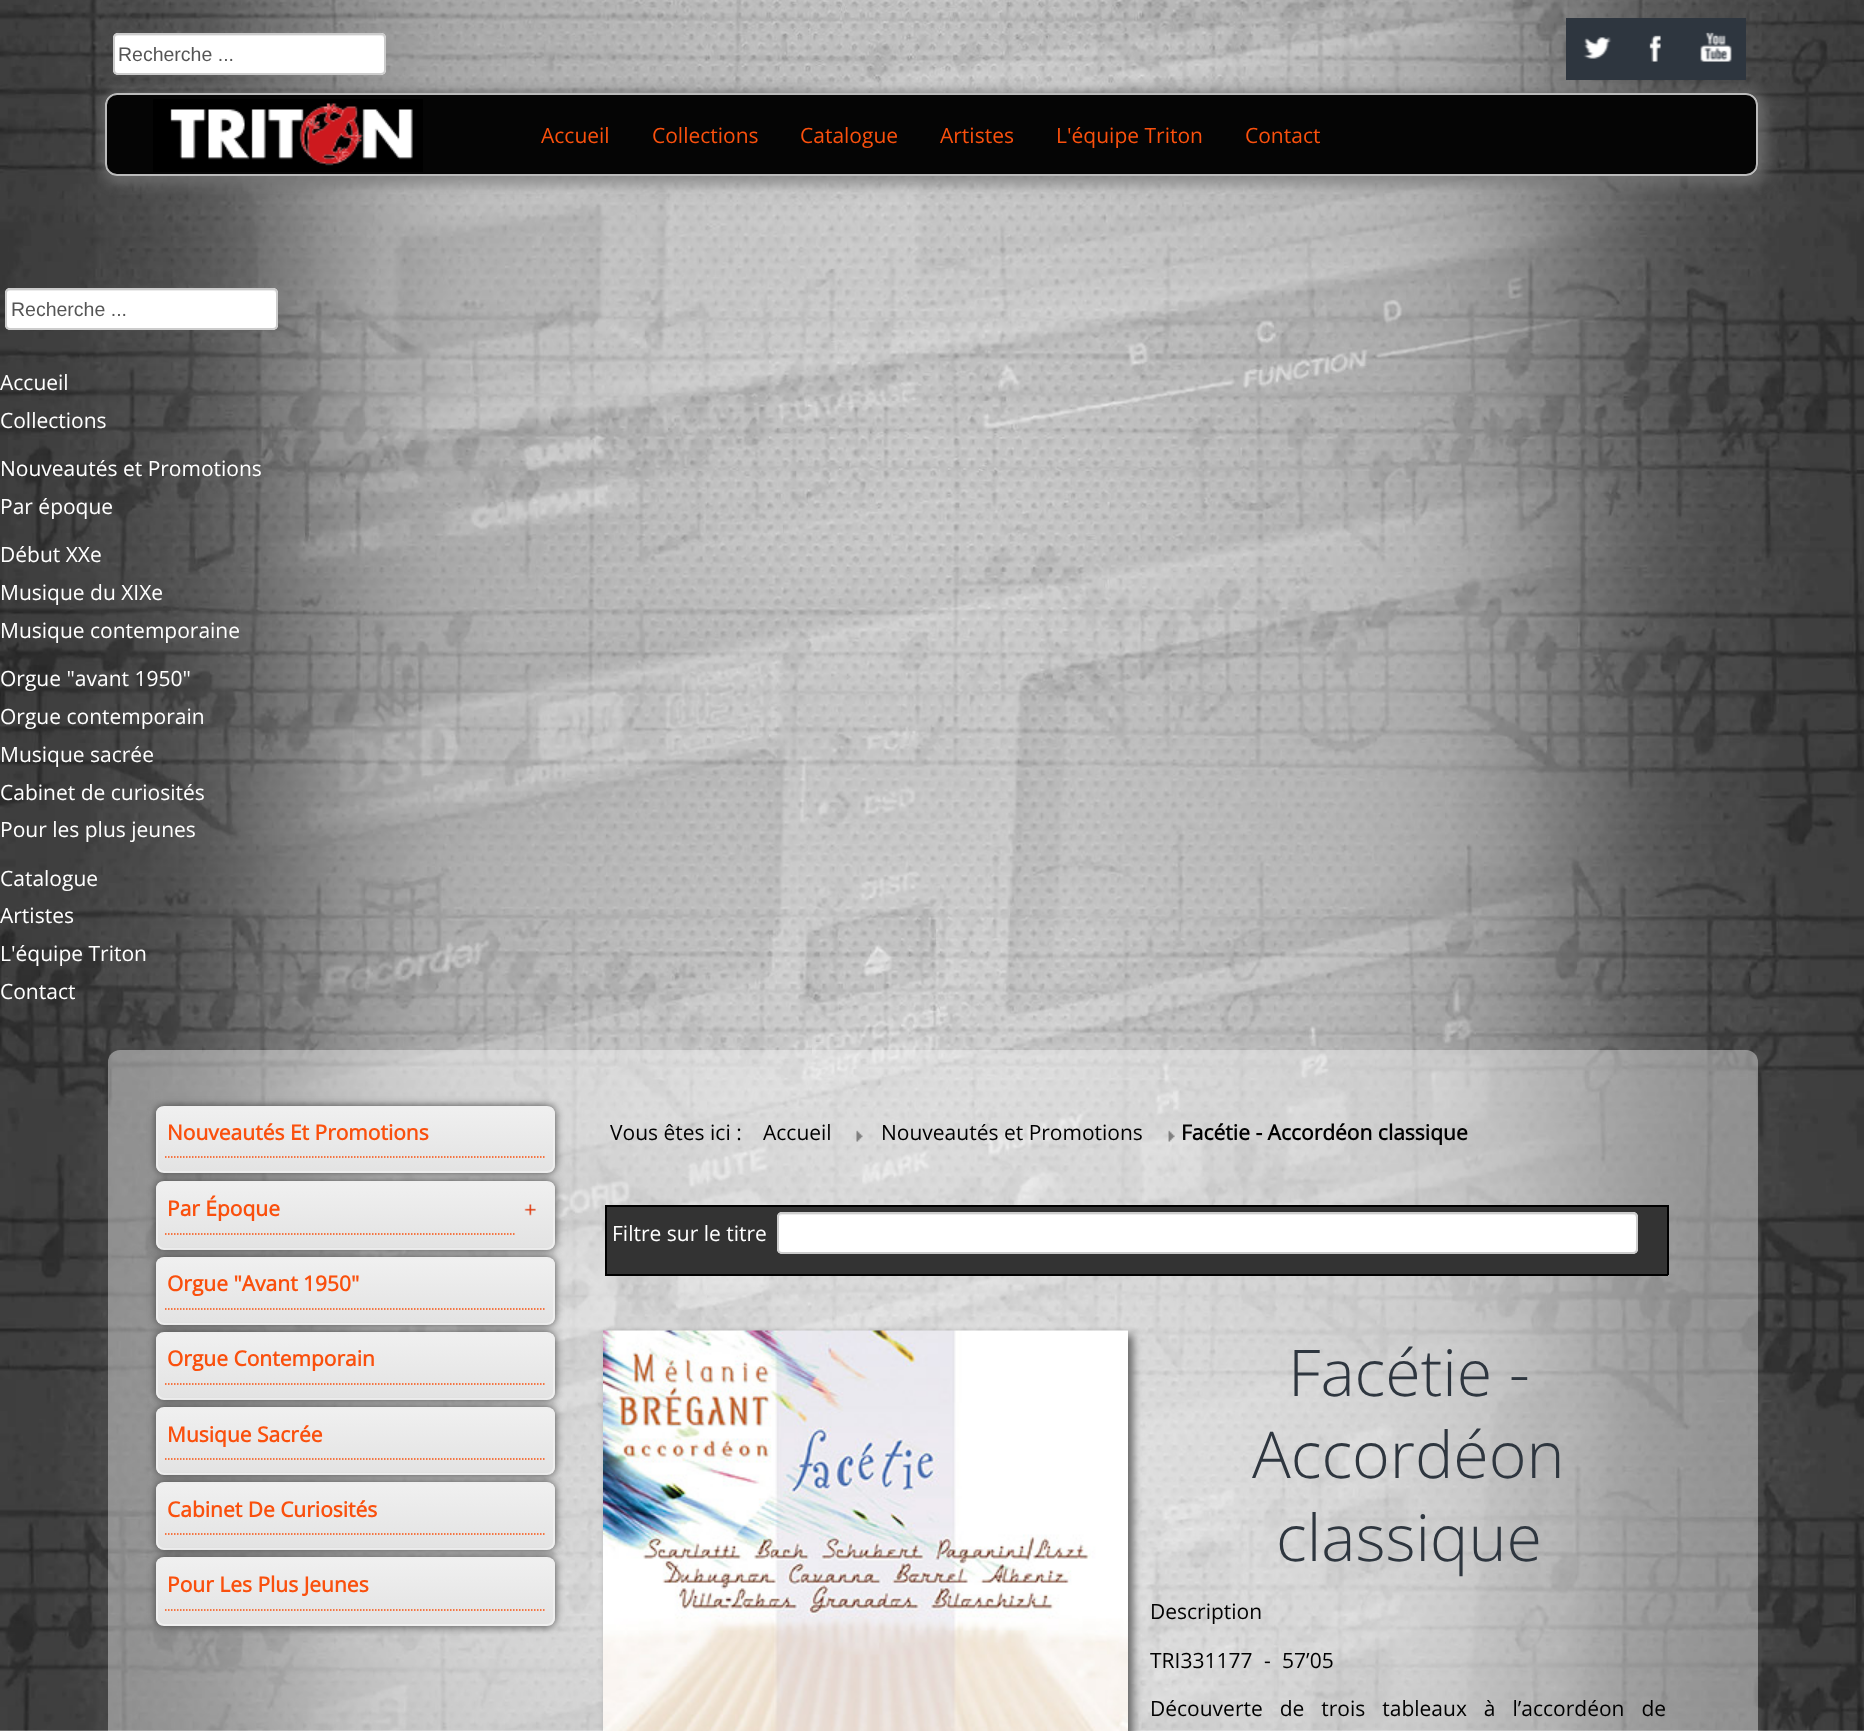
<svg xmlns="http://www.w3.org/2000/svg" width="1864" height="1731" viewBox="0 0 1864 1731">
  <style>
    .t1 { font: 19.5px Liberation Sans; fill: #555; }
    .t2 { font: 21px Open Sans; fill: #fa500d; }
    .t3 { font: 21px Open Sans; fill: #fff; }
    .t4 { font: bold 21px Open Sans; fill: #fa500d; }
    .t5 { font: 21px Open Sans; fill: #000; }
    .t6 { font: bold 21px Open Sans; fill: #000; }
    .t7 { font: 300 64.5px Open Sans; fill: #2e363f; }
  </style>
  <defs>
    <clipPath id="clip1"><rect x="156" y="1106" width="399" height="67" rx="8"/></clipPath>
    <linearGradient id="g1" gradientUnits="userSpaceOnUse" x1="356" y1="1107" x2="356" y2="1172"><stop offset="0" stop-color="#f0f0f0"/><stop offset="1" stop-color="#e3e3e3"/></linearGradient>
    <clipPath id="clip2"><rect x="156" y="1181" width="399" height="69" rx="8"/></clipPath>
    <linearGradient id="g2" gradientUnits="userSpaceOnUse" x1="356" y1="1182" x2="356" y2="1248"><stop offset="0" stop-color="#f0f0f0"/><stop offset="1" stop-color="#e3e3e3"/></linearGradient>
    <clipPath id="clip3"><rect x="156" y="1257" width="399" height="68" rx="8"/></clipPath>
    <linearGradient id="g3" gradientUnits="userSpaceOnUse" x1="356" y1="1259" x2="356" y2="1323"><stop offset="0" stop-color="#f0f0f0"/><stop offset="1" stop-color="#e3e3e3"/></linearGradient>
    <clipPath id="clip4"><rect x="156" y="1332" width="399" height="68" rx="8"/></clipPath>
    <linearGradient id="g4" gradientUnits="userSpaceOnUse" x1="356" y1="1334" x2="356" y2="1398"><stop offset="0" stop-color="#f0f0f0"/><stop offset="1" stop-color="#e3e3e3"/></linearGradient>
    <clipPath id="clip5"><rect x="156" y="1407" width="399" height="68" rx="8"/></clipPath>
    <linearGradient id="g5" gradientUnits="userSpaceOnUse" x1="356" y1="1409" x2="356" y2="1473"><stop offset="0" stop-color="#f0f0f0"/><stop offset="1" stop-color="#e3e3e3"/></linearGradient>
    <clipPath id="clip6"><rect x="156" y="1482" width="399" height="68" rx="8"/></clipPath>
    <linearGradient id="g6" gradientUnits="userSpaceOnUse" x1="356" y1="1484" x2="356" y2="1548"><stop offset="0" stop-color="#f0f0f0"/><stop offset="1" stop-color="#e3e3e3"/></linearGradient>
    <clipPath id="clip7"><rect x="156" y="1557" width="399" height="69" rx="8"/></clipPath>
    <linearGradient id="g7" gradientUnits="userSpaceOnUse" x1="356" y1="1559" x2="356" y2="1625"><stop offset="0" stop-color="#f0f0f0"/><stop offset="1" stop-color="#e3e3e3"/></linearGradient>
  </defs>
  <rect width="100%" height="100%" fill="#fff"/>
  <image x="0" y="0" width="1864" height="1731" href="images/1.png"/>
  <rect x="102" y="90" width="1665" height="95" rx="18" fill="#777777a6" filter="blur(6px)"/>
  <rect x="113" y="33" width="273" height="42" rx="5" fill="#fff"/>
  <path d="M117 36H381C383 36 384 37 384 39V38C384 36 383 35 381 35H117C115 35 114 36 114 38V39C114 37 115 36 117 36Z" fill="#ececec"/>
  <rect x="114" y="34" width="271" height="40" rx="4" fill="none" stroke="#ccc" stroke-width="2"/>
  <text x="118" y="61" class="t1">Recherche ...</text>
  <rect x="1566" y="18" width="180" height="62" fill="#2e363f"/>
  <image x="1583" y="37" width="29" height="22" href="images/2.png"/>
  <image x="1649" y="35" width="12" height="27" href="images/3.png"/>
  <image x="1700" y="32" width="32" height="30" href="images/4.png"/>
  <rect x="105" y="93" width="1653" height="83" rx="12" fill="#050505"/>
  <image x="1757" y="158" width="2" height="10" href="images/6.png"/>
  <rect x="106" y="94" width="1651" height="81" rx="11" fill="none" stroke="#bbb" stroke-width="2"/>
  <image x="153" y="99" width="270" height="73" href="images/5.png"/>
  <text x="541" y="143" class="t2">Accueil</text>
  <text x="652" y="143" class="t2">Collections</text>
  <text x="800" y="143" class="t2">Catalogue</text>
  <text x="940" y="143" class="t2">Artistes</text>
  <text x="1056" y="143" class="t2">L'équipe Triton</text>
  <text x="1245" y="143" class="t2">Contact</text>
  <rect x="5" y="288" width="273" height="42" rx="5" fill="#fff"/>
  <path d="M9 291H273C275 291 276 292 276 294V293C276 291 275 290 273 290H9C7 290 6 291 6 293V294C6 292 7 291 9 291Z" fill="#ececec"/>
  <rect x="6" y="289" width="271" height="40" rx="4" fill="none" stroke="#ccc" stroke-width="2"/>
  <text x="11" y="316" class="t1">Recherche ...</text>
  <text x="0" y="390" class="t3">Accueil</text>
  <text x="0" y="428" class="t3">Collections</text>
  <text x="0" y="476" class="t3">Nouveautés et Promotions</text>
  <text x="0" y="514" class="t3">Par époque</text>
  <text x="0" y="562" class="t3">Début XXe</text>
  <text x="0" y="600" class="t3">Musique du XIXe</text>
  <text x="0" y="638" class="t3">Musique contemporaine</text>
  <text x="0" y="686" class="t3">Orgue "avant 1950"</text>
  <text x="0" y="724" class="t3">Orgue contemporain</text>
  <text x="0" y="762" class="t3">Musique sacrée</text>
  <text x="0" y="800" class="t3">Cabinet de curiosités</text>
  <text x="0" y="837" class="t3">Pour les plus jeunes</text>
  <text x="0" y="886" class="t3">Catalogue</text>
  <text x="0" y="923" class="t3">Artistes</text>
  <text x="0" y="961" class="t3">L'équipe Triton</text>
  <text x="0" y="999" class="t3">Contact</text>
  <rect x="108" y="1050" width="1650" height="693" rx="12" fill="#ffffff66"/>
  <rect x="156" y="1106" width="399" height="67" rx="8" fill="#444" filter="blur(4px)"/>
  <g clip-path="url(#clip1)">
    <rect x="156" y="1107" width="399" height="65" fill="url(#g1)"/>
  </g>
  <rect x="157" y="1107" width="397" height="65" rx="7" fill="none" stroke="#efefef" stroke-width="2"/>
  <path d="M165 1157H546" fill="none" stroke="#fa500d" stroke-width="1.5" stroke-dasharray="1.5 1.5"/>
  <text x="167" y="1140" class="t4">Nouveautés Et Promotions</text>
  <rect x="156" y="1181" width="399" height="69" rx="8" fill="#444" filter="blur(4px)"/>
  <g clip-path="url(#clip2)">
    <rect x="156" y="1182" width="399" height="66" fill="url(#g2)"/>
  </g>
  <rect x="157" y="1182" width="397" height="67" rx="7" fill="none" stroke="#efefef" stroke-width="2"/>
  <path d="M165 1234H516" fill="none" stroke="#fa500d" stroke-width="1.5" stroke-dasharray="1.5 1.5"/>
  <text x="167" y="1216" class="t4">Par Époque</text>
  <image x="524" y="1204" width="12" height="12" href="images/7.png"/>
  <rect x="156" y="1257" width="399" height="68" rx="8" fill="#444" filter="blur(4px)"/>
  <g clip-path="url(#clip3)">
    <rect x="156" y="1259" width="399" height="64" fill="url(#g3)"/>
  </g>
  <rect x="157" y="1258" width="397" height="66" rx="7" fill="none" stroke="#efefef" stroke-width="2"/>
  <path d="M165 1309H546" fill="none" stroke="#fa500d" stroke-width="1.5" stroke-dasharray="1.5 1.5"/>
  <text x="167" y="1291" class="t4">Orgue "Avant 1950"</text>
  <rect x="156" y="1332" width="399" height="68" rx="8" fill="#444" filter="blur(4px)"/>
  <g clip-path="url(#clip4)">
    <rect x="156" y="1334" width="399" height="64" fill="url(#g4)"/>
  </g>
  <rect x="157" y="1333" width="397" height="66" rx="7" fill="none" stroke="#efefef" stroke-width="2"/>
  <path d="M165 1384H546" fill="none" stroke="#fa500d" stroke-width="1.5" stroke-dasharray="1.5 1.5"/>
  <text x="167" y="1366" class="t4">Orgue Contemporain</text>
  <rect x="156" y="1407" width="399" height="68" rx="8" fill="#444" filter="blur(4px)"/>
  <g clip-path="url(#clip5)">
    <rect x="156" y="1409" width="399" height="64" fill="url(#g5)"/>
  </g>
  <rect x="157" y="1408" width="397" height="66" rx="7" fill="none" stroke="#efefef" stroke-width="2"/>
  <path d="M165 1459H546" fill="none" stroke="#fa500d" stroke-width="1.5" stroke-dasharray="1.5 1.5"/>
  <text x="167" y="1442" class="t4">Musique Sacrée</text>
  <rect x="156" y="1482" width="399" height="68" rx="8" fill="#444" filter="blur(4px)"/>
  <g clip-path="url(#clip6)">
    <rect x="156" y="1484" width="399" height="64" fill="url(#g6)"/>
  </g>
  <rect x="157" y="1483" width="397" height="66" rx="7" fill="none" stroke="#efefef" stroke-width="2"/>
  <path d="M165 1534H546" fill="none" stroke="#fa500d" stroke-width="1.5" stroke-dasharray="1.5 1.5"/>
  <text x="167" y="1517" class="t4">Cabinet De Curiosités</text>
  <rect x="156" y="1557" width="399" height="69" rx="8" fill="#444" filter="blur(4px)"/>
  <g clip-path="url(#clip7)">
    <rect x="156" y="1559" width="399" height="66" fill="url(#g7)"/>
  </g>
  <rect x="157" y="1558" width="397" height="67" rx="7" fill="none" stroke="#efefef" stroke-width="2"/>
  <path d="M165 1610H546" fill="none" stroke="#fa500d" stroke-width="1.5" stroke-dasharray="1.5 1.5"/>
  <text x="167" y="1592" class="t4">Pour Les Plus Jeunes</text>
  <text x="610" y="1140" class="t5">Vous êtes ici :</text>
  <text x="763" y="1140" class="t5">Accueil</text>
  <image x="856" y="1130" width="7" height="12" href="images/8.png"/>
  <text x="881" y="1140" class="t5">Nouveautés et Promotions</text>
  <image x="1168" y="1130" width="7" height="12" href="images/9.png"/>
  <text x="1181" y="1140" class="t6">Facétie - Accordéon classique</text>
  <rect x="607" y="1207" width="1060" height="67" fill="#333"/>
  <rect x="605" y="1205" width="1063" height="2" fill="#000"/>
  <rect x="1667" y="1205" width="2" height="70" fill="#000"/>
  <rect x="605" y="1274" width="1063" height="2" fill="#000"/>
  <rect x="605" y="1205" width="2" height="70" fill="#000"/>
  <text x="612" y="1241" class="t3">Filtre sur le titre</text>
  <rect x="777" y="1212" width="861" height="42" rx="5" fill="#fff"/>
  <path d="M782 1215H1634C1635 1215 1636 1216 1636 1218V1252C1637 1252 1637 1251 1637 1250V1217C1637 1215 1636 1214 1634 1214H782C781 1214 780 1215 779 1216Z" fill="#ececec"/>
  <rect x="778" y="1213" width="859" height="40" rx="4" fill="none" stroke="#ccc" stroke-width="2"/>
  <rect x="608" y="1335" width="525" height="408" fill="#656565" filter="blur(4px)"/>
  <image x="603" y="1330" width="525" height="401" href="images/10.png"/>
  <text x="1288" y="1396" class="t7">Facétie -</text>
  <text x="1252" y="1478" class="t7">Accordéon</text>
  <text x="1276" y="1561" class="t7">classique</text>
  <text x="1150" y="1619" class="t5">Description</text>
  <text x="1150" y="1668" word-spacing="6" class="t5">TRI331177 - 57’05</text>
  <text x="1150" y="1716" word-spacing="11.5" class="t5">Découverte de trois tableaux à l’accordéon de</text>
</svg>
